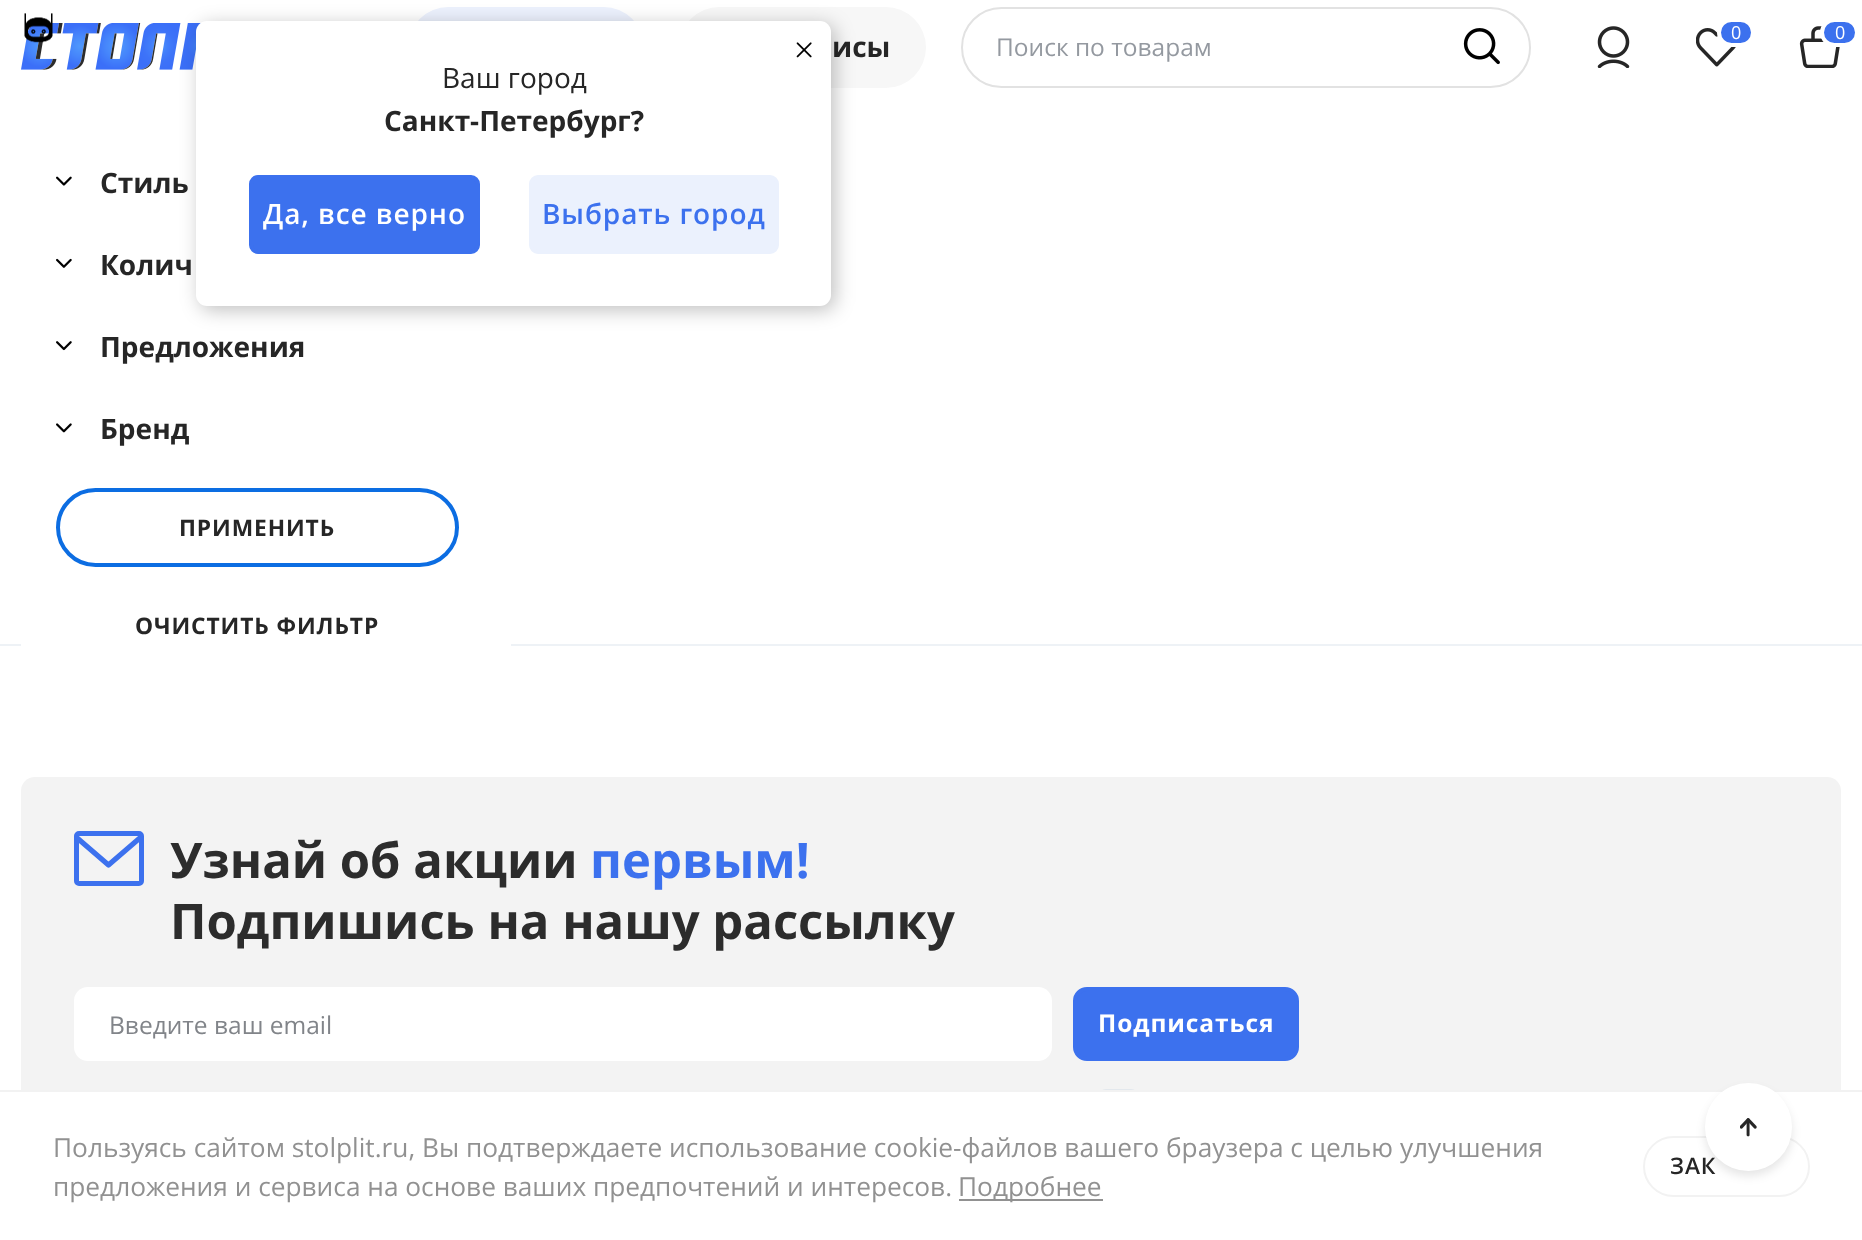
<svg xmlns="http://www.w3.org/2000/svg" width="1862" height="1240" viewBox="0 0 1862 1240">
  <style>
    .t1 { font: 18px Open Sans; fill: #fff; }
    .t2 { font: bold 28px Open Sans; fill: #262626; }
    .t3 { font: 24.5px Open Sans; fill: #9499a0; }
    .t4 { font: 28px Open Sans; fill: #262626; }
    .t5 { font: 600 28px Open Sans; letter-spacing: 0.9px; fill: #fff; }
    .t6 { font: 600 28px Open Sans; letter-spacing: 0.9px; fill: #3c71ee; }
    .t7 { font: 26.25px Open Sans; fill: #919191; }
    .t8 { font: 600 22.75px Open Sans; letter-spacing: 0.9px; fill: #262626; }
    .t9 { font: bold 22.75px Open Sans; letter-spacing: 0.9px; fill: #262626; }
    .t10 { font: bold 49px Open Sans; fill: #2c2c2c; }
    .t11 { font: bold 49px Open Sans; fill: #3c71ee; }
    .t12 { font: 24.5px Open Sans; fill: #818489; }
    .t13 { font: bold 24.5px Open Sans; letter-spacing: 0.9px; fill: #fff; }
  </style>
  <rect width="100%" height="100%" fill="#fff"/>
  <image x="21" y="23" width="180" height="47" href="images/2.png"/>
  <image x="24" y="13" width="29" height="30" href="images/1.png"/>
  <image x="1597" y="26" width="33" height="42" href="images/3.png"/>
  <image x="1696" y="28" width="40" height="39" href="images/4.png"/>
  <rect x="1719" y="20" width="34" height="25" rx="12.5" fill="#3c71ee" stroke="#fff" stroke-width="4"/>
  <text x="1731" y="39" class="t1">0</text>
  <image x="1799" y="26" width="41" height="42" href="images/5.png"/>
  <rect x="1822" y="20" width="35" height="25" rx="12.5" fill="#3c71ee" stroke="#fff" stroke-width="4"/>
  <text x="1835" y="39" class="t1">0</text>
  <rect x="408" y="7" width="236" height="81" rx="40.5" fill="#ecf1fd"/>
  <rect x="679" y="7" width="247" height="81" rx="40.5" fill="#f7f7f7"/>
  <text x="832" y="57" class="t2">исы</text>
  <rect x="962" y="8" width="568" height="79" rx="39.5" fill="none" stroke="#e2e2e2" stroke-width="2"/>
  <text x="996" y="56" class="t3">Поиск по товарам</text>
  <image x="1463" y="28" width="37" height="37" href="images/6.png"/>
  <rect x="200" y="25" width="635" height="285" rx="11" fill="#00000040" filter="blur(9.5px)"/>
  <rect x="196" y="21" width="635" height="285" rx="11" fill="#fff"/>
  <image x="796" y="42" width="16" height="16" href="images/7.png"/>
  <text x="442" y="88" class="t4">Ваш город</text>
  <text x="384" y="131" class="t2">Санкт-Петербург?</text>
  <rect x="251" y="177" width="227" height="75" rx="7" fill="#3c71ee" stroke="#3c71ee" stroke-width="4"/>
  <text x="263" y="224" class="t5">Да, все верно</text>
  <rect x="531" y="177" width="246" height="75" rx="7" fill="#ebf1fd" stroke="#ebf1fd" stroke-width="4"/>
  <text x="542" y="224" class="t6">Выбрать город</text>
  <rect x="21" y="777" width="1820" height="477" rx="14" fill="#f3f3f3"/>
  <rect x="1100" y="1090" width="37" height="36" rx="6" fill="none" stroke="#e3e8ed" stroke-width="2"/>
  <rect x="21" y="1092" width="1820" height="148" fill="#fff"/>
  <rect x="0" y="1090" width="1862" height="2" fill="#f2f2f2"/>
  <text x="53" y="1157" class="t7">Пользуясь сайтом stolplit.ru, Вы подтверждаете использование cookie-файлов вашего браузера с целью улучшения</text>
  <text x="53" y="1196" class="t7">предложения и сервиса на основе ваших предпочтений и интересов.</text>
  <rect x="959" y="1199" width="144" height="2" fill="#919191"/>
  <text x="958" y="1196" class="t7">Подробнее</text>
  <rect x="1644" y="1137" width="165" height="59" rx="29.5" fill="none" stroke="#f2f2f2" stroke-width="2"/>
  <text x="1670" y="1174" class="t8">ЗАК</text>
  <rect x="0" y="644" width="1862" height="2" fill="#eef2f6"/>
  <rect x="21" y="644" width="490" height="2" fill="#fff"/>
  <image x="56" y="176" width="16" height="10" href="images/8.png"/>
  <text x="100" y="193" class="t2">Стиль</text>
  <image x="56" y="258" width="16" height="10" href="images/9.png"/>
  <text x="100" y="275" class="t2">Колич</text>
  <image x="56" y="341" width="16" height="10" href="images/10.png"/>
  <text x="100" y="357" class="t2">Предложения</text>
  <image x="56" y="423" width="16" height="10" href="images/11.png"/>
  <text x="100" y="439" class="t2">Бренд</text>
  <rect x="58" y="490" width="399" height="75" rx="37.5" fill="none" stroke="#0c6de2" stroke-width="4"/>
  <text x="179" y="536" class="t9">ПРИМЕНИТЬ</text>
  <text x="135" y="634" class="t9">ОЧИСТИТЬ ФИЛЬТР</text>
  <rect x="76.5" y="833.5" width="65" height="50" rx="2.5" fill="none" stroke="#3c71ee" stroke-width="5"/>
  <path d="M76 837L108.5 865L141 837" fill="none" stroke="#3c71ee" stroke-width="5.2" stroke-linejoin="round"/>
  <text x="170" y="878" class="t10">Узнай об акции</text>
  <text x="590" y="878" class="t11">первым!</text>
  <text x="170" y="939" class="t10">Подпишись на нашу рассылку</text>
  <rect x="74" y="987" width="978" height="74" rx="14" fill="#fff"/>
  <text x="109" y="1034" class="t12">Введите ваш email</text>
  <rect x="1075" y="989" width="222" height="70" rx="12" fill="#3c71ee" stroke="#3c71ee" stroke-width="4"/>
  <text x="1098" y="1032" class="t13">Подписаться</text>
  <rect x="1705" y="1089" width="87" height="87" rx="43.5" fill="#0000001a" filter="blur(5px)"/>
  <rect x="1705" y="1083" width="87" height="88" rx="43.5" fill="#fff"/>
  <image x="1740" y="1118" width="17" height="19" href="images/12.png"/>
</svg>
